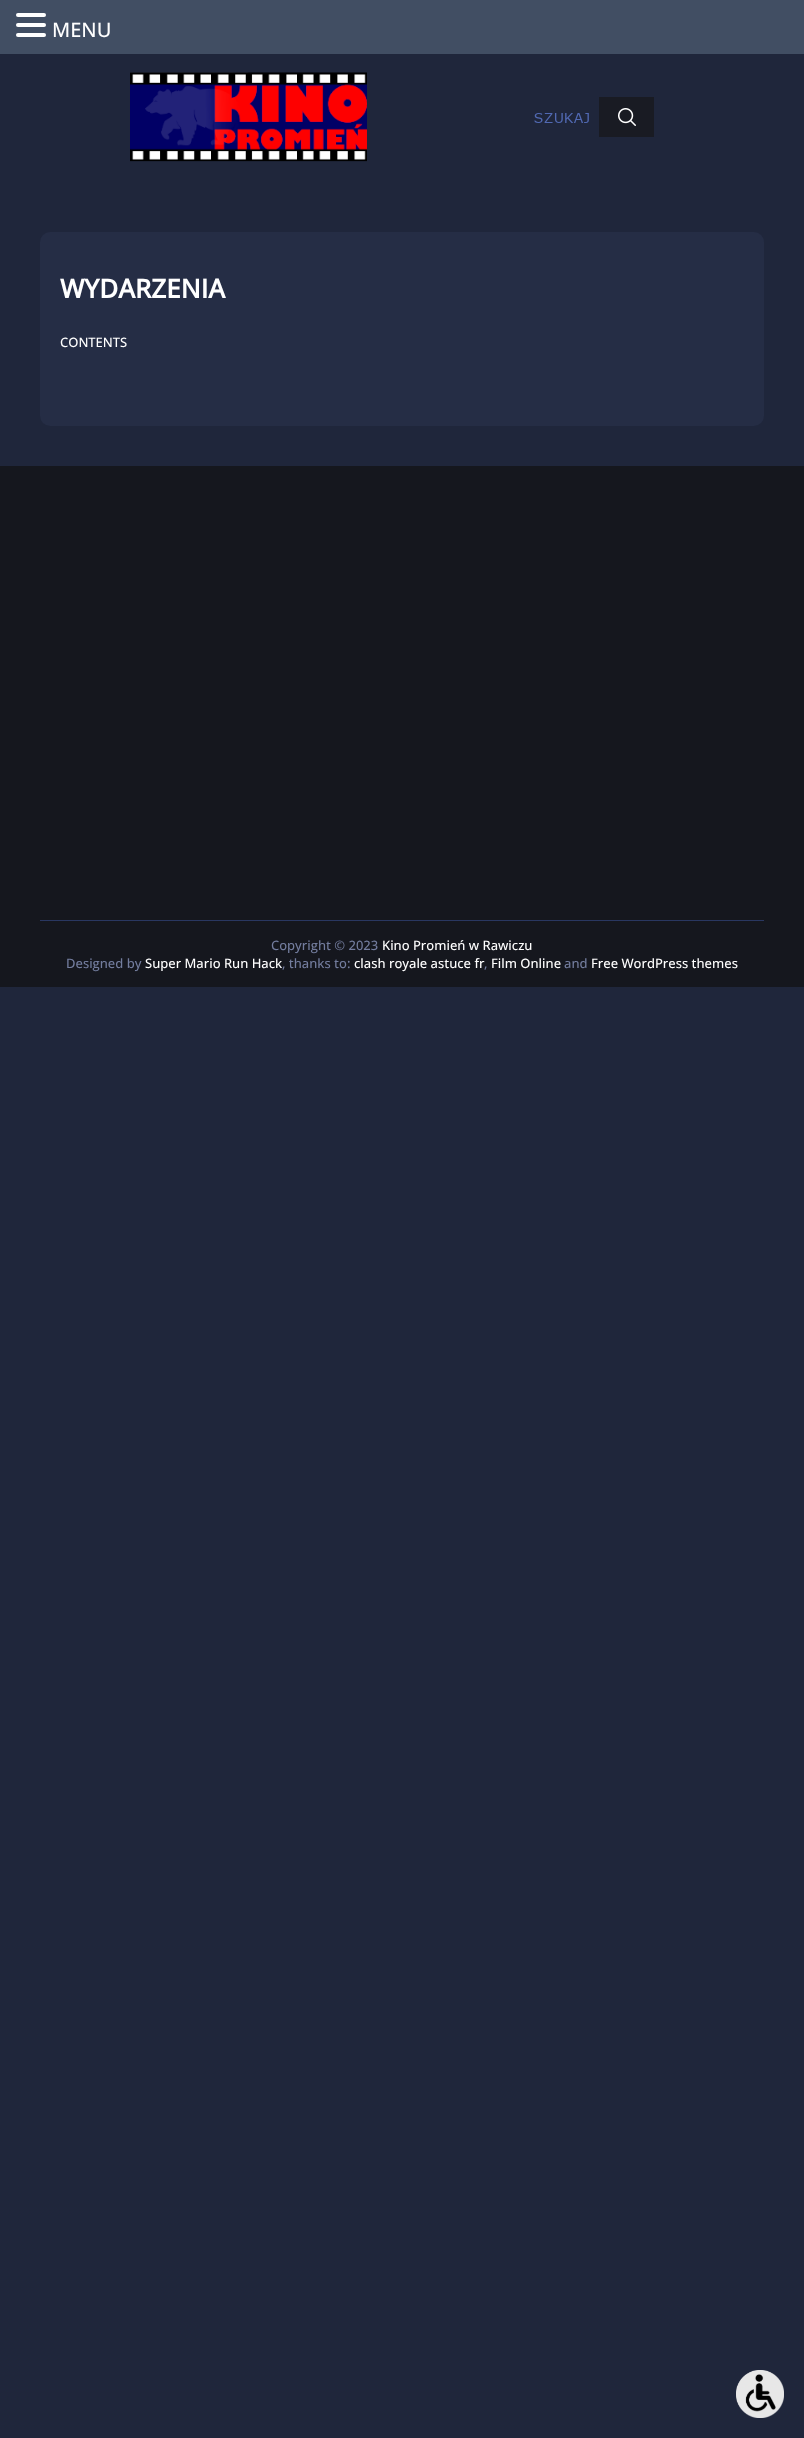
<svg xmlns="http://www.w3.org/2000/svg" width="804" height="2438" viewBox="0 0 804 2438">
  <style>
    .t1 { font: 500 20px Open Sans; fill: #fff; }
    .t2 { font: bold 26px Open Sans; fill: #fff; }
    .t3 { font: 500 13px Open Sans; fill: #fff; }
    .t4 { font: 500 13px Open Sans; fill: #737d9e; }
  </style>
  <rect width="100%" height="100%" fill="#1f263b"/>
  <rect x="0" y="0" width="804" height="54" fill="#414e63"/>
  <rect x="16" y="13" width="30" height="4" rx="2" fill="#fff"/>
  <rect x="16" y="23" width="30" height="4" rx="2" fill="#fff"/>
  <rect x="16" y="33" width="30" height="4" rx="2" fill="#fff"/>
  <text x="52" y="37" class="t1">MENU</text>
  <image x="130" y="72" width="237" height="90" href="images/1.png"/>
  <image x="534" y="97" width="120" height="40" href="images/2.png"/>
  <rect x="40" y="232" width="724" height="194" rx="10" fill="#252d45"/>
  <text x="60" y="298" class="t2">WYDARZENIA</text>
  <text x="60" y="347" class="t3">CONTENTS</text>
  <rect x="0" y="466" width="804" height="521" fill="#15171e"/>
  <rect x="40" y="920" width="724" height="1" fill="#293761"/>
  <text x="271" y="950" class="t4">Copyright © 2023</text>
  <text x="382" y="950" class="t3">Kino Promień w Rawiczu</text>
  <text x="66" y="968" class="t4">Designed by</text>
  <text x="145" y="968" class="t3">Super Mario Run Hack</text>
  <text x="282" y="968" class="t4">, thanks to:</text>
  <text x="354" y="968" class="t3">clash royale astuce fr</text>
  <text x="484" y="968" class="t4">,</text>
  <text x="491" y="968" class="t3">Film Online</text>
  <text x="564" y="968" class="t4">and</text>
  <text x="591" y="968" class="t3">Free WordPress themes</text>
  <image x="736" y="2370" width="48" height="48" href="images/3.png"/>
</svg>
